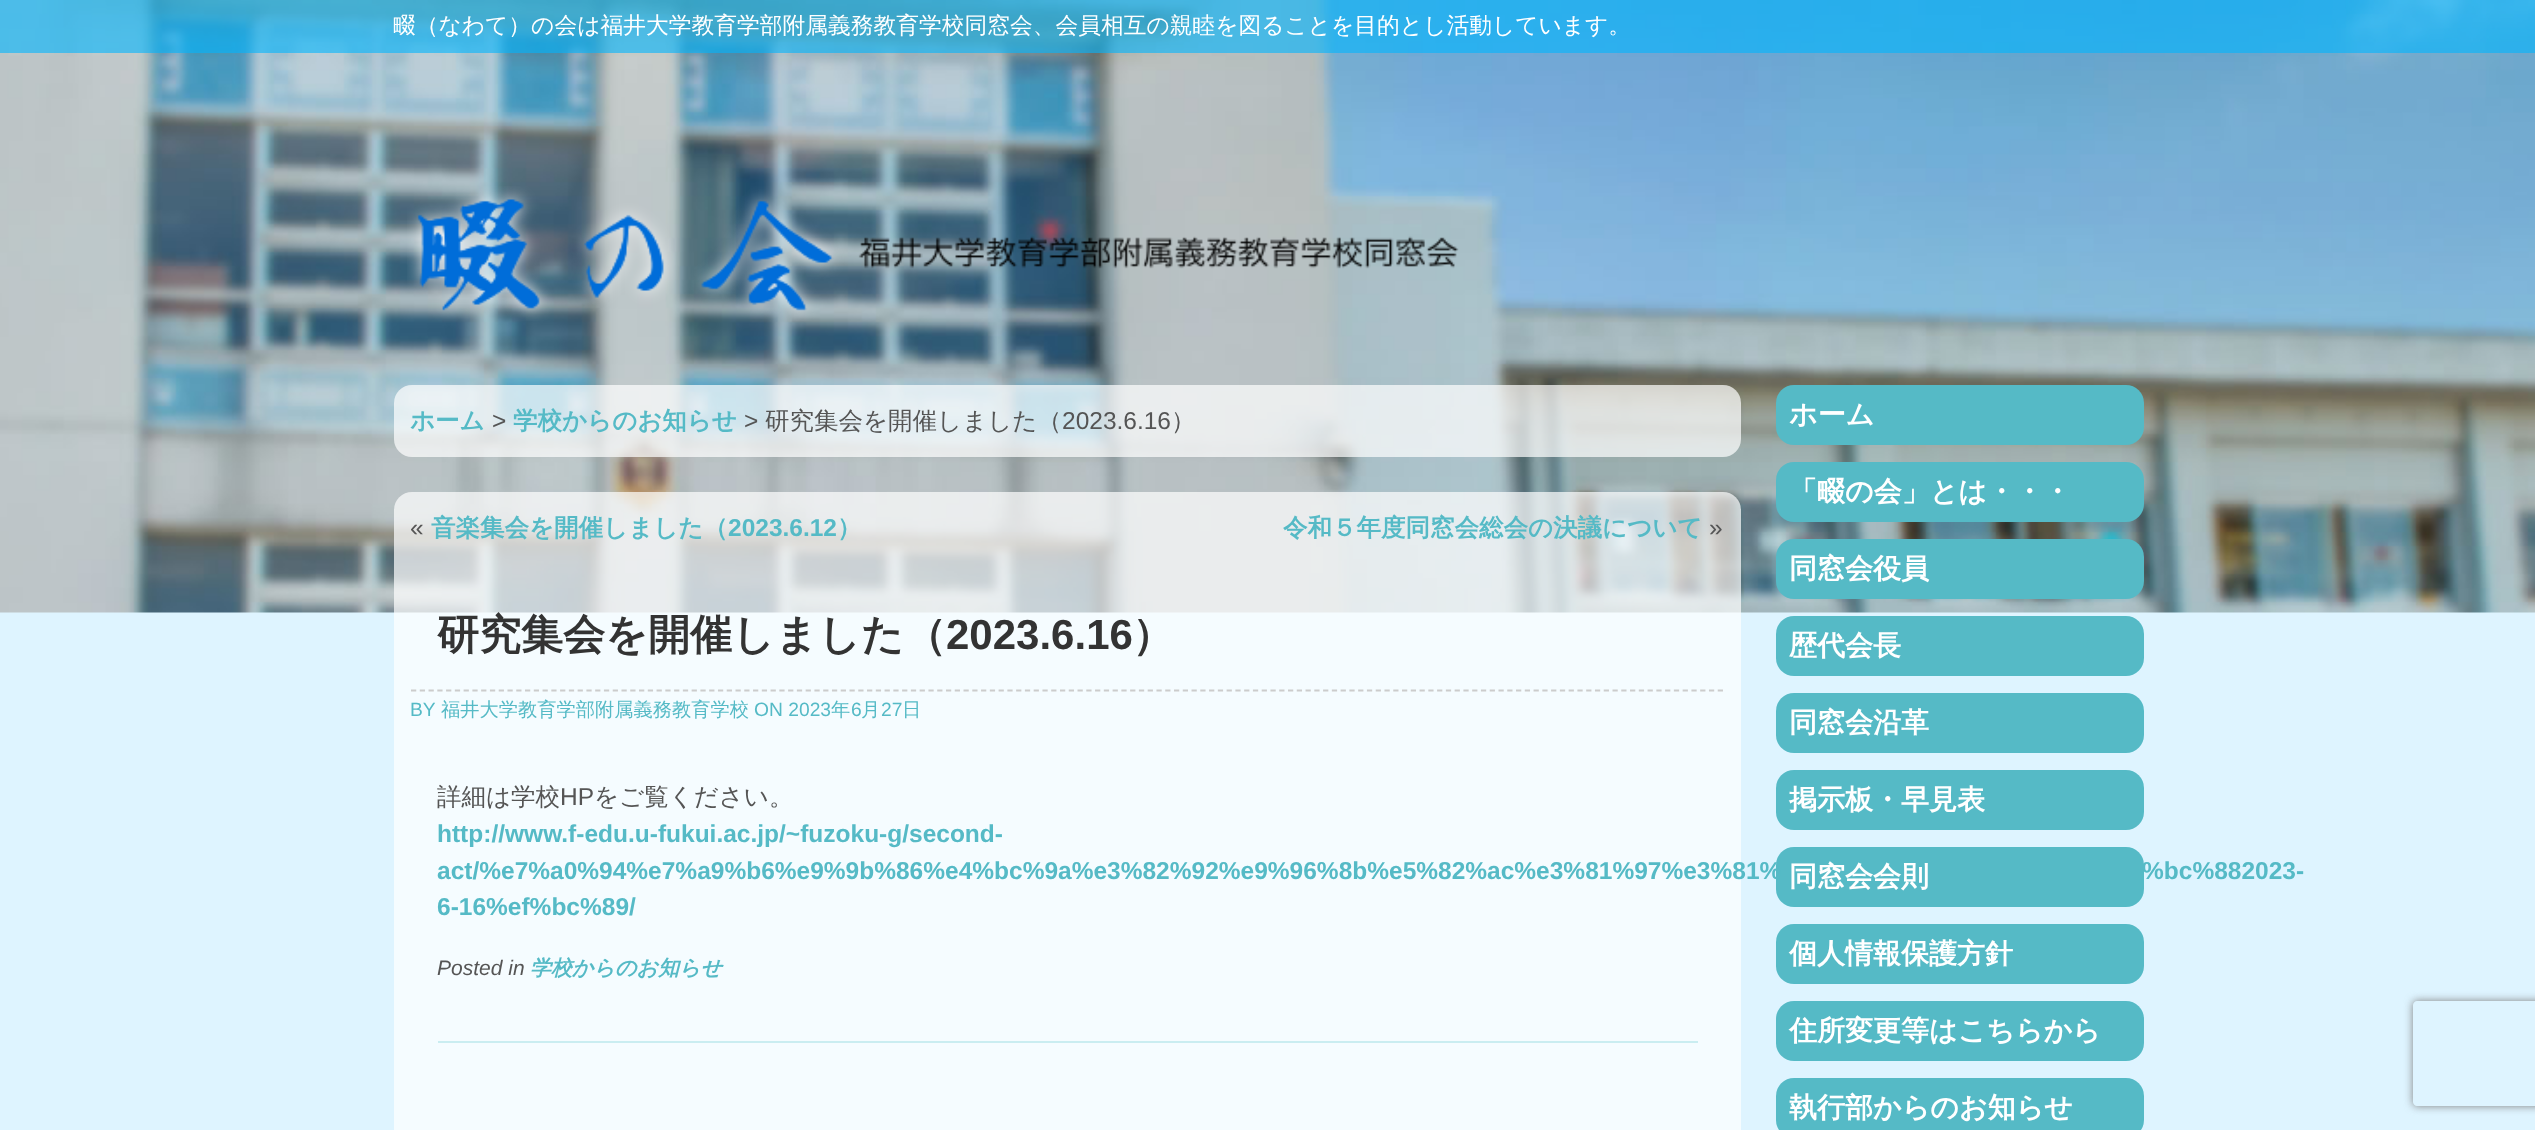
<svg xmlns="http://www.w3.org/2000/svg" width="2535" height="1130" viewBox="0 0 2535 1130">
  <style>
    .t1 { font: 500 22.75px WenQuanYi Zen Hei; fill: #fff; }
    .t2 { font: bold 28px WenQuanYi Zen Hei; fill: #fff; }
    .t3 { font: bold 24.5px WenQuanYi Zen Hei; fill: #55bac6; }
    .t4 { font: 24.5px Liberation Sans; fill: #555; }
    .t5 { font: 500 24.5px WenQuanYi Zen Hei; fill: #555; }
    .t6 { font: bold 24.5px Liberation Sans; fill: #55bac6; }
    .t7 { font: bold 42px WenQuanYi Zen Hei; fill: #333; }
    .t8 { font: bold 42px Liberation Sans; fill: #333; }
    .t9 { font: 19.25px Liberation Sans; fill: #55bac6; }
    .t10 { font: 500 19.25px WenQuanYi Zen Hei; fill: #55bac6; }
    .t11 { font: italic 21px Liberation Sans; fill: #555; }
    .t12 { font: italic bold 21px WenQuanYi Zen Hei; fill: #55bac6; }
  </style>
  <defs>
    <clipPath id="clip1"><path d="M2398 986H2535V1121H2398ZM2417 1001H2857C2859 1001 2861 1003 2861 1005V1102C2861 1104 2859 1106 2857 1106H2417C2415 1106 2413 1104 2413 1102V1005C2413 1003 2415 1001 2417 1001Z" clip-rule="evenodd"/></clipPath>
  </defs>
  <rect width="100%" height="100%" fill="#def4ff"/>
  <image x="0" y="0" width="2535" height="613" href="images/1.png"/>
  <rect x="0" y="0" width="2535" height="53" fill="#00b5ff99"/>
  <text x="393" y="33" class="t1">畷（なわて）の会は福井大学教育学部附属義務教育学校同窓会、会員相互の親睦を図ることを目的とし活動しています。</text>
  <image x="407" y="186" width="1052" height="135" href="images/2.png"/>
  <rect x="1776" y="385" width="368" height="60" rx="18" fill="#55bac6"/>
  <text x="1789" y="424" class="t2">ホーム</text>
  <rect x="1776" y="462" width="368" height="60" rx="18" fill="#55bac6"/>
  <text x="1789" y="501" class="t2">「畷の会」とは・・・</text>
  <rect x="1776" y="539" width="368" height="60" rx="18" fill="#55bac6"/>
  <text x="1789" y="578" class="t2">同窓会役員</text>
  <rect x="1776" y="616" width="368" height="60" rx="18" fill="#55bac6"/>
  <text x="1789" y="655" class="t2">歴代会長</text>
  <rect x="1776" y="693" width="368" height="60" rx="18" fill="#55bac6"/>
  <text x="1789" y="732" class="t2">同窓会沿革</text>
  <rect x="1776" y="770" width="368" height="60" rx="18" fill="#55bac6"/>
  <text x="1789" y="809" class="t2">掲示板・早見表</text>
  <rect x="1776" y="847" width="368" height="60" rx="18" fill="#55bac6"/>
  <text x="1789" y="886" class="t2">同窓会会則</text>
  <rect x="1776" y="924" width="368" height="60" rx="18" fill="#55bac6"/>
  <text x="1789" y="963" class="t2">個人情報保護方針</text>
  <rect x="1776" y="1001" width="368" height="60" rx="18" fill="#55bac6"/>
  <text x="1789" y="1040" class="t2">住所変更等はこちらから</text>
  <rect x="1776" y="1078" width="368" height="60" rx="18" fill="#55bac6"/>
  <text x="1789" y="1117" class="t2">執行部からのお知らせ</text>
  <rect x="394" y="385" width="1347" height="72" rx="18" fill="#ffffffb3"/>
  <text x="410" y="429" class="t3">ホーム</text>
  <text x="492" y="429" class="t4">&gt;</text>
  <text x="513" y="429" class="t3">学校からのお知らせ</text>
  <text x="744" y="429" class="t4">&gt;</text>
  <text x="765" y="429" class="t5">研究集会を開催しました（</text>
  <text x="1062" y="429" class="t4">2023.6.16</text>
  <text x="1171" y="429" class="t5">）</text>
  <rect x="394" y="492" width="1347" height="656" rx="18" fill="#ffffffb3"/>
  <text x="410" y="536" class="t4">«</text>
  <text x="431" y="536" class="t3">音楽集会を開催しました（</text>
  <text x="728" y="536" class="t6">2023.6.12</text>
  <text x="837" y="536" class="t3">）</text>
  <text x="1283" y="536" class="t3">令和５年度同窓会総会の決議について</text>
  <text x="1709" y="536" class="t4">»</text>
  <path d="M411 690.5H1724" fill="none" stroke="#ccc" stroke-width="1.8" stroke-dasharray="5.25 3.52"/>
  <text x="437" y="649" class="t7">研究集会を開催しました（</text>
  <text x="946" y="649" class="t8">2023.6.16</text>
  <text x="1132" y="649" class="t7">）</text>
  <text x="410" y="716" class="t9">BY</text>
  <text x="441" y="716" class="t10">福井大学教育学部附属義務教育学校</text>
  <text x="754" y="716" class="t9">ON 2023</text>
  <text x="831" y="716" class="t10">年</text>
  <text x="851" y="716" class="t9">6</text>
  <text x="861" y="716" class="t10">月</text>
  <text x="881" y="716" class="t9">27</text>
  <text x="902" y="716" class="t10">日</text>
  <text x="437" y="805" class="t5">詳細は学校</text>
  <text x="560" y="805" class="t4">HP</text>
  <text x="594" y="805" class="t5">をご覧ください。</text>
  <text x="437" y="842" class="t6">http://www.f-edu.u-fukui.ac.jp/~fuzoku-g/second-</text>
  <text x="437" y="879" class="t6">act/%e7%a0%94%e7%a9%b6%e9%9b%86%e4%bc%9a%e3%82%92%e9%96%8b%e5%82%ac%e3%81%97%e3%81%</text>
  <text x="2142" y="879" class="t6">%bc%882023-</text>
  <text x="437" y="915" class="t6">6-16%ef%bc%89/</text>
  <text x="437" y="975" class="t11">Posted in</text>
  <text x="530" y="975" class="t12">学校からのお知らせ</text>
  <rect x="438" y="1041" width="1260" height="2" fill="#caedf1"/>
  <g clip-path="url(#clip1)">
    <rect x="2413" y="1001" width="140" height="105" rx="4" fill="#808080" filter="blur(4.5px)"/>
  </g>
</svg>
